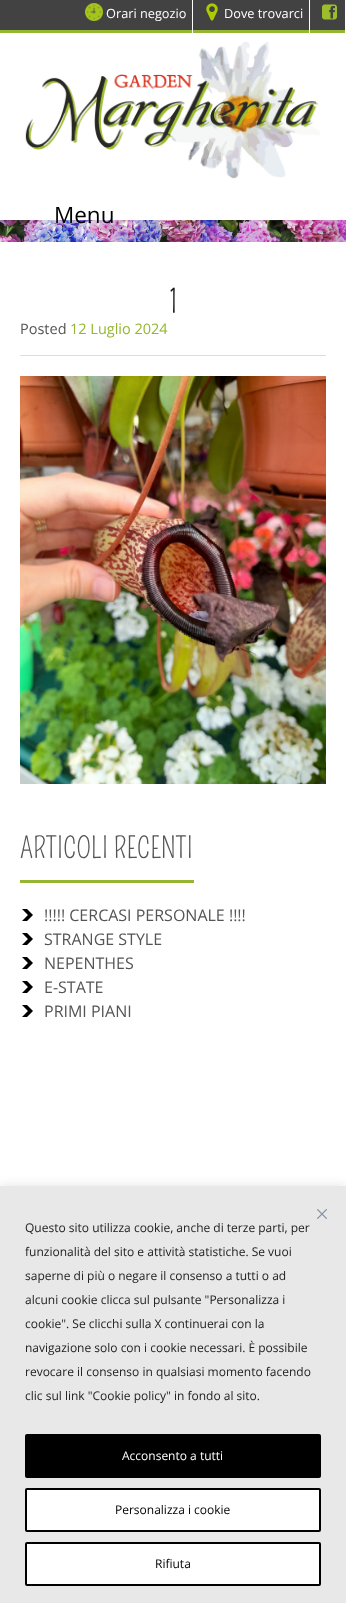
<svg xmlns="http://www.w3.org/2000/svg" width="346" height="1603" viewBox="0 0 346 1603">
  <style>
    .t1 { font: 12.75px Open Sans; fill: #fff; }
    .t2 { font: 22.5px Open Sans; fill: #000; }
    .t3 { font: 32px Pompiere; fill: #111; }
    .t4 { font: 14.5px Open Sans; fill: #555; }
    .t5 { font: 14.5px Open Sans; fill: #94b632; }
    .t6 { font: 28.75px Pompiere; fill: #555; }
    .t7 { font: 16px Open Sans; fill: #555; }
    .t8 { font: 12px Open Sans; fill: #212121; }
    .t9 { font: 12px Open Sans; fill: #fff; }
    .t10 { font: 12px Open Sans; fill: #000; }
  </style>
  <rect width="100%" height="100%" fill="#fff"/>
  <rect x="0" y="0" width="345" height="30" fill="#424242"/>
  <rect x="0" y="30" width="346" height="3" fill="#94b632"/>
  <rect x="192" y="0" width="1" height="33" fill="#fff"/>
  <image x="85" y="3" width="18" height="18" href="images/1.png"/>
  <text x="106" y="18" class="t1">Orari negozio</text>
  <rect x="309" y="0" width="1" height="33" fill="#fff"/>
  <image x="206" y="3" width="12" height="18" href="images/2.png"/>
  <text x="224" y="18" class="t1">Dove trovarci</text>
  <rect x="345" y="30" width="1" height="3" fill="#fff"/>
  <image x="322" y="4" width="15" height="16" href="images/3.png"/>
  <image x="25" y="42" width="295" height="137" href="images/4.png"/>
  <image x="0" y="220" width="346" height="22" href="images/5.png"/>
  <text x="54" y="223" class="t2">Menu</text>
  <rect x="20" y="355" width="306" height="1" fill="#ddd"/>
  <text x="169" y="313" class="t3">1</text>
  <text x="20" y="334" class="t4">Posted</text>
  <text x="70" y="334" class="t5">12 Luglio 2024</text>
  <image x="20" y="376" width="306" height="408" href="images/6.png"/>
  <rect x="20" y="880" width="174" height="3" fill="#94b632"/>
  <text x="20" y="858" class="t6">ARTICOLI RECENTI</text>
  <image x="22" y="909" width="11" height="12" href="images/7.png"/>
  <text x="44" y="921" class="t7">!!!!! CERCASI PERSONALE !!!!</text>
  <image x="22" y="933" width="11" height="12" href="images/7.png"/>
  <text x="44" y="945" class="t7">STRANGE STYLE</text>
  <image x="22" y="957" width="11" height="12" href="images/7.png"/>
  <text x="44" y="969" class="t7">NEPENTHES</text>
  <image x="22" y="981" width="11" height="12" href="images/7.png"/>
  <text x="44" y="993" class="t7">E-STATE</text>
  <image x="22" y="1005" width="11" height="12" href="images/7.png"/>
  <text x="44" y="1017" class="t7">PRIMI PIANI</text>
  <rect x="0" y="1185" width="346" height="417" fill="#acabab4d" filter="blur(5px)"/>
  <rect x="0" y="1186" width="346" height="417" fill="#e8e8e8"/>
  <image x="317" y="1209" width="10" height="10" href="images/8.png"/>
  <text x="25" y="1232" class="t8">Questo sito utilizza cookie, anche di terze parti, per</text>
  <text x="25" y="1256" class="t8">funzionalità del sito e attività statistiche. Se vuoi</text>
  <text x="25" y="1280" class="t8">saperne di più o negare il consenso a tutti o ad</text>
  <text x="25" y="1304" class="t8">alcuni cookie clicca sul pulsante "Personalizza i</text>
  <text x="25" y="1328" class="t8">cookie". Se clicchi sulla X continuerai con la</text>
  <text x="25" y="1352" class="t8">navigazione solo con i cookie necessari. È possibile</text>
  <text x="25" y="1376" class="t8">revocare il consenso in qualsiasi momento facendo</text>
  <text x="25" y="1400" class="t8">clic sul link "Cookie policy" in fondo al sito.</text>
  <rect x="26" y="1435" width="294" height="42" rx="1" fill="#000" stroke="#000" stroke-width="2"/>
  <text x="122" y="1460" class="t9">Acconsento a tutti</text>
  <rect x="26" y="1489" width="294" height="42" rx="1" fill="#fff" stroke="#000" stroke-width="2"/>
  <text x="115" y="1514" class="t10">Personalizza i cookie</text>
  <rect x="26" y="1543" width="294" height="42" rx="1" fill="#fff" stroke="#000" stroke-width="2"/>
  <text x="155" y="1568" class="t10">Rifiuta</text>
</svg>
